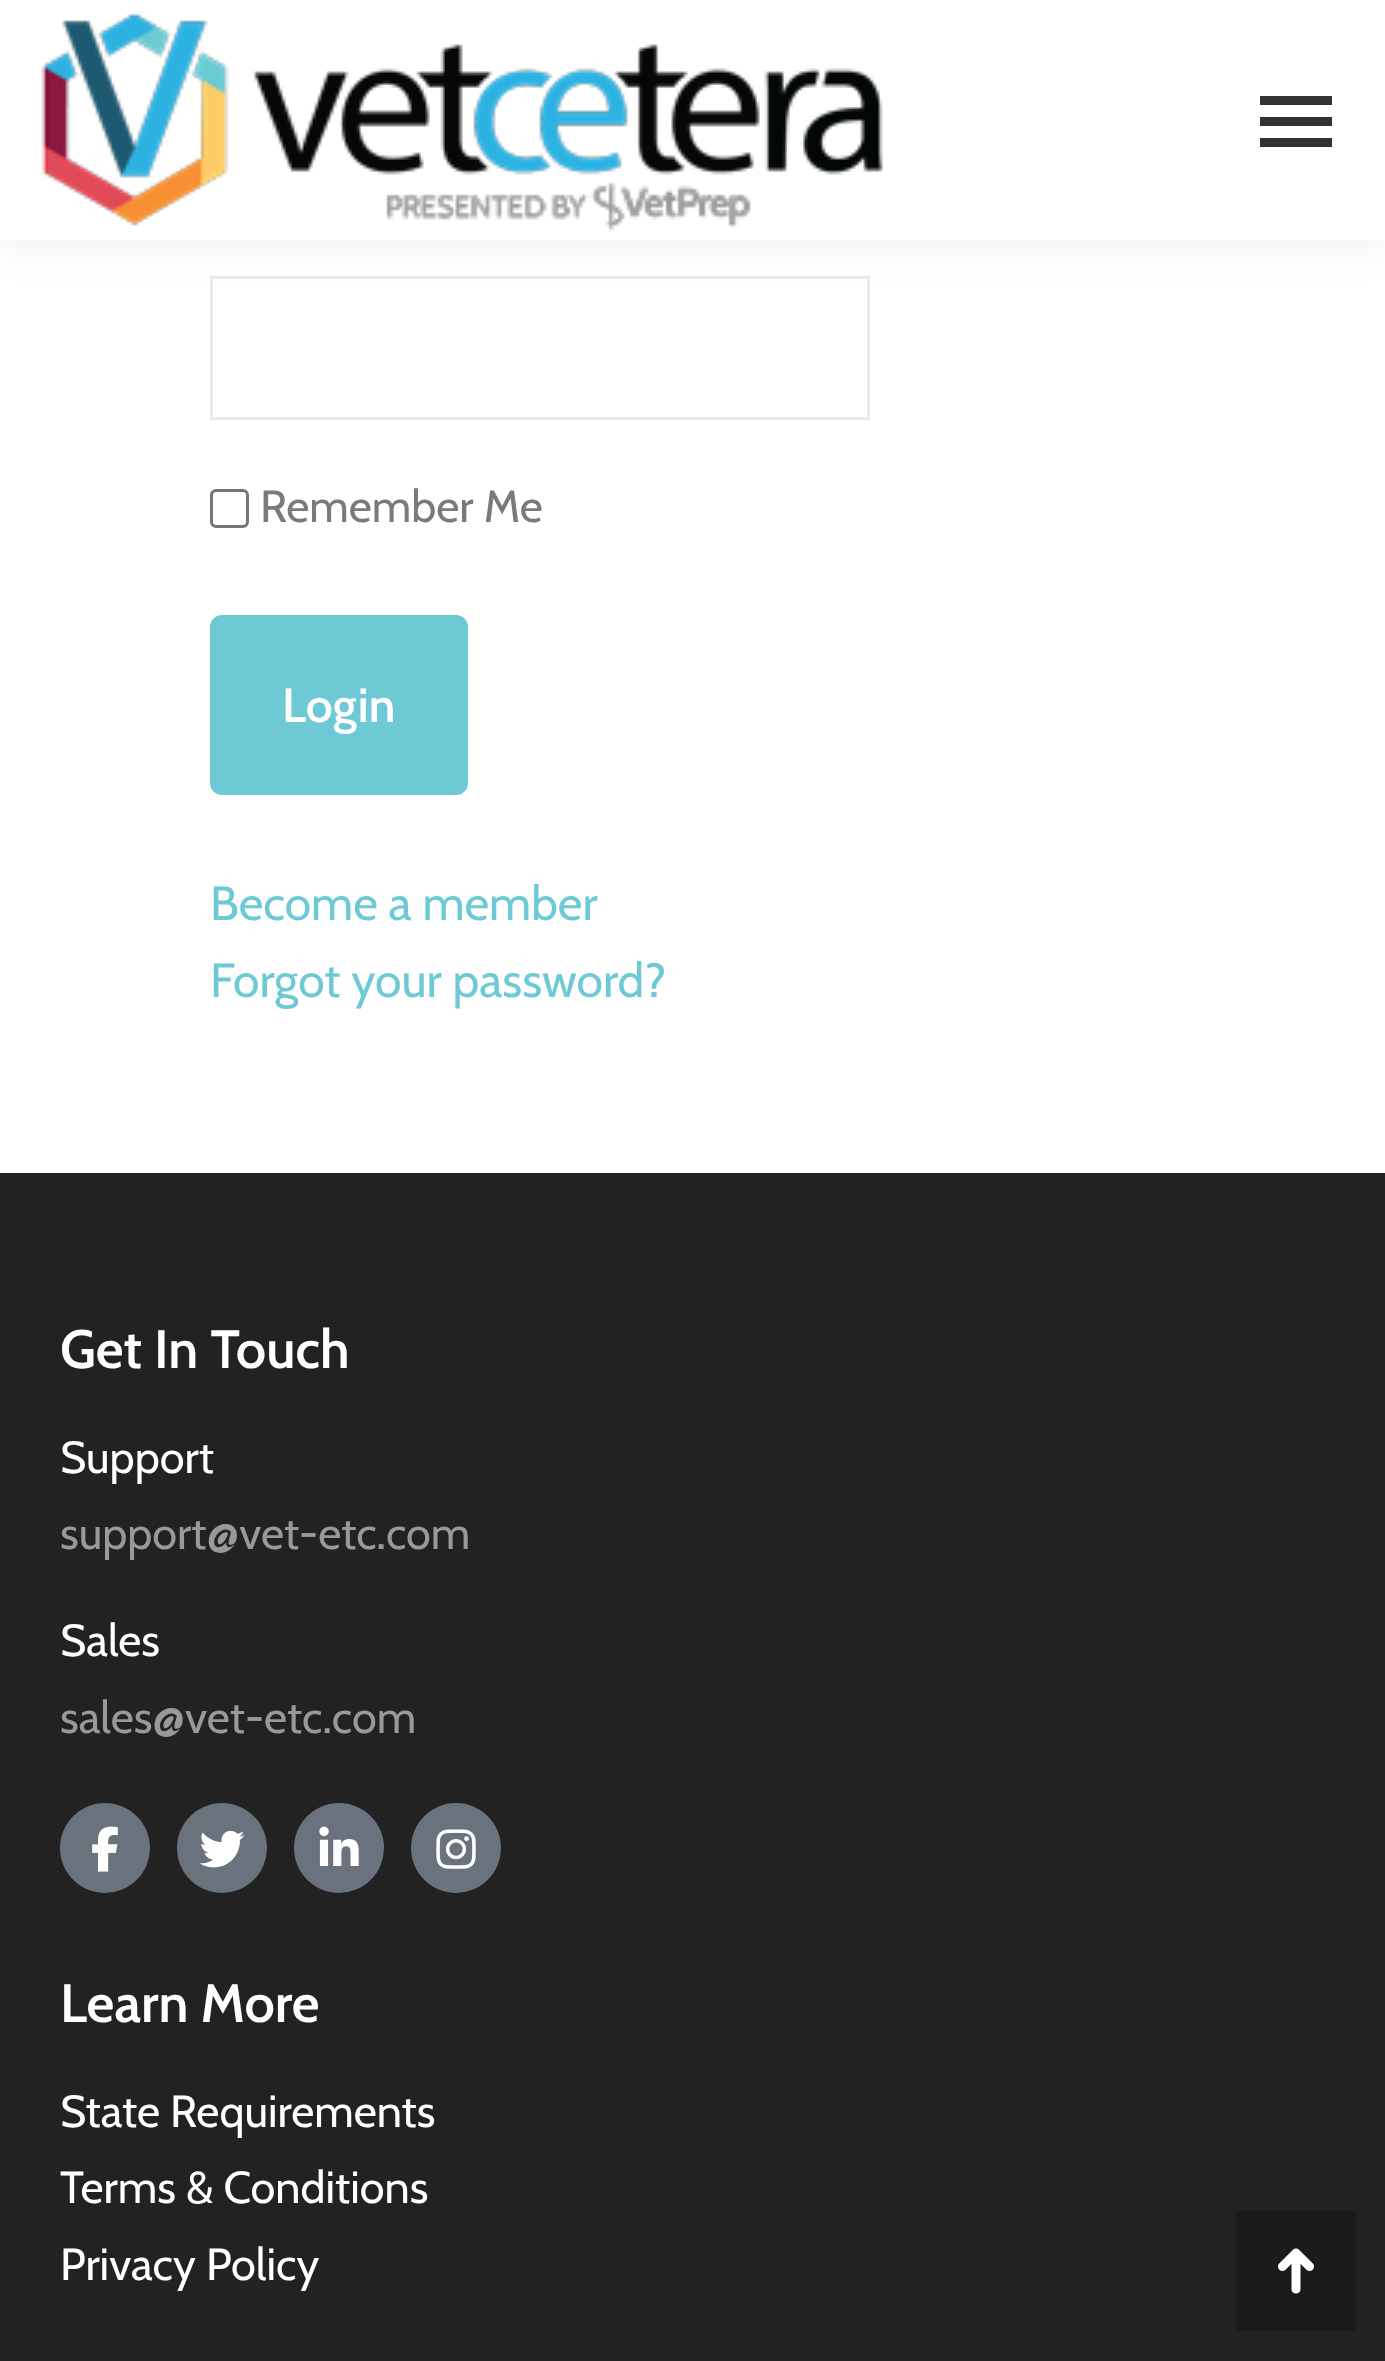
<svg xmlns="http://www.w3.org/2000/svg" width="1385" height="2361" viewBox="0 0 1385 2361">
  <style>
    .t1 { font: 45px Cabin; fill: #7a7a7a; }
    .t2 { font: 600 48px Cabin; fill: #fff; }
    .t3 { font: 48px Cabin; fill: #6dc9d4; }
    .t4 { font: 600 54px Cabin; fill: #fff; }
    .t5 { font: 45px Cabin; fill: #fff; }
    .t6 { font: 45px Cabin; fill: #999; }
  </style>
  <rect width="100%" height="100%" fill="#fff"/>
  <rect x="211.5" y="277.5" width="657" height="141" fill="none" stroke="#e9e9e9" stroke-width="3"/>
  <rect x="-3" y="-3" width="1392" height="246" fill="#00000012" filter="blur(22.5px)"/>
  <rect x="0" y="0" width="1385" height="240" fill="#fff"/>
  <image x="41" y="11" width="842" height="221" href="images/1.png"/>
  <rect x="1260" y="96" width="72" height="9" fill="#333"/>
  <rect x="1260" y="117" width="72" height="9" fill="#333"/>
  <rect x="1260" y="138" width="72" height="9" fill="#333"/>
  <rect x="211.5" y="490.5" width="36" height="36" rx="4.5" fill="none" stroke="#767676" stroke-width="3"/>
  <text x="260" y="522" class="t1">Remember Me</text>
  <rect x="210" y="615" width="258" height="180" rx="12" fill="#6dc9d4"/>
  <text x="282" y="722" class="t2">Login</text>
  <text x="210" y="920" class="t3">Become a member</text>
  <text x="210" y="997" class="t3">Forgot your password?</text>
  <rect x="0" y="1173" width="1385" height="1188" fill="#222"/>
  <text x="60" y="1368" class="t4">Get In Touch</text>
  <text x="60" y="1473" class="t5">Support</text>
  <text x="60" y="1549" class="t6">support@vet-etc.com</text>
  <text x="60" y="1656" class="t5">Sales</text>
  <text x="60" y="1733" class="t6">sales@vet-etc.com</text>
  <circle cx="105" cy="1848" r="45" fill="#69727d"/>
  <image x="92" y="1826" width="26" height="46" href="images/2.png"/>
  <circle cx="222" cy="1848" r="45" fill="#69727d"/>
  <image x="199" y="1830" width="46" height="38" href="images/3.png"/>
  <circle cx="339" cy="1848" r="45" fill="#69727d"/>
  <image x="319" y="1826" width="40" height="40" href="images/4.png"/>
  <circle cx="456" cy="1848" r="45" fill="#69727d"/>
  <image x="436" y="1829" width="40" height="40" href="images/5.png"/>
  <text x="60" y="2022" class="t4">Learn More</text>
  <text x="60" y="2127" class="t5">State Requirements</text>
  <text x="60" y="2203" class="t5">Terms &amp; Conditions</text>
  <text x="60" y="2280" class="t5">Privacy Policy</text>
  <rect x="1236" y="2211" width="120" height="120" fill="#1b1b1b"/>
  <image x="1278" y="2248" width="36" height="46" href="images/6.png"/>
</svg>
